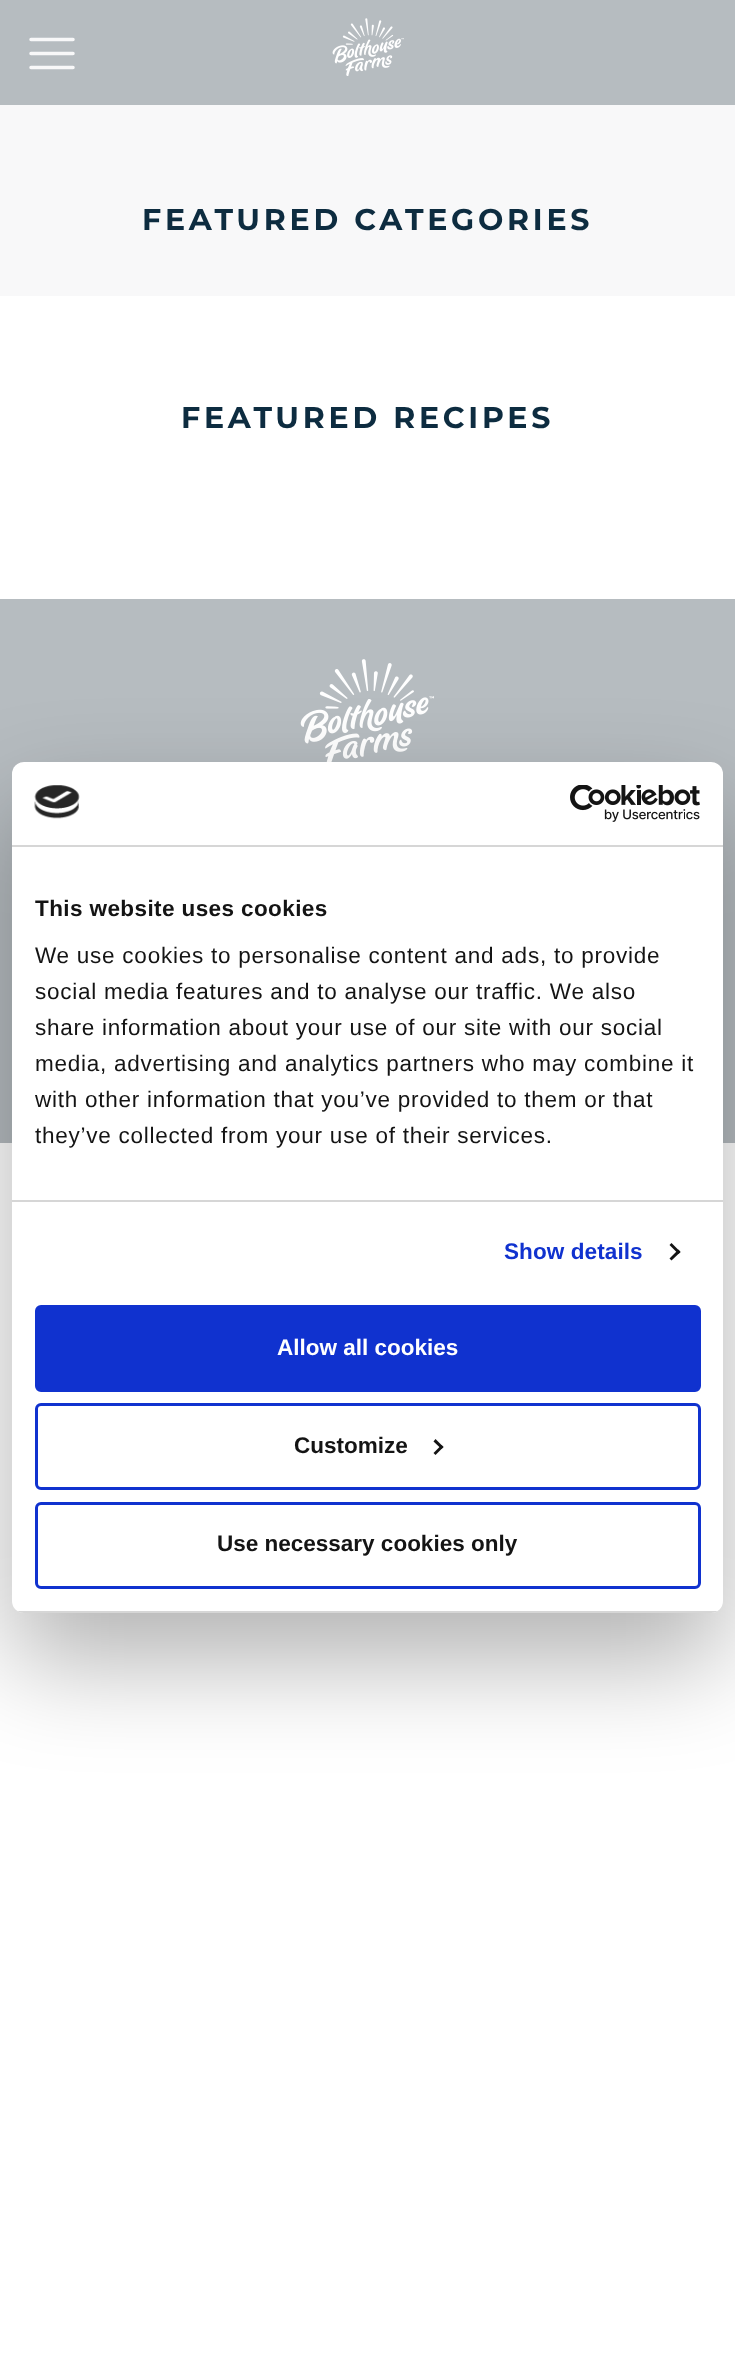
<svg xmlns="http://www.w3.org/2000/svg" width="735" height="2371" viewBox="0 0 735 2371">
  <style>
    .t1 { font: bold 30px Montserrat; letter-spacing: 3.75px; fill: #0d2c40; }
    .t2 { font: bold 22.5px Liberation Sans; letter-spacing: 0.4px; fill: #141414; }
    .t3 { font: 22.5px Liberation Sans; letter-spacing: 0.75px; fill: #141414; }
    .t4 { font: bold 22.5px Liberation Sans; letter-spacing: 0.1px; fill: #1032cf; }
    .t5 { font: bold 22.5px Liberation Sans; fill: #fff; }
    .t6 { font: bold 22.5px Liberation Sans; fill: #141414; }
  </style>
  <defs>
    <clipPath id="clip1"><rect x="12" y="762" width="711" height="851" rx="12"/></clipPath>
  </defs>
  <rect width="100%" height="100%" fill="#fff"/>
  <rect x="0" y="0" width="735" height="105" fill="#b6bcc0"/>
  <path d="M31 39.5H73M31 53.5H73M31 67.5H73" fill="none" stroke="#f8f8f9" stroke-width="3.5" stroke-linecap="round"/>
  <image x="332" y="18" width="72" height="58" href="images/1.png"/>
  <rect x="0" y="105" width="735" height="191" fill="#f8f8f9"/>
  <text x="142" y="230" class="t1">FEATURED CATEGORIES</text>
  <text x="181" y="428" class="t1">FEATURED RECIPES</text>
  <rect x="0" y="599" width="735" height="544" fill="#b6bcc0"/>
  <image x="300" y="659" width="134" height="103" href="images/2.png"/>
  <rect x="12" y="810" width="711" height="851" rx="12" fill="#0000004d" filter="blur(51px)"/>
  <rect x="12" y="762" width="711" height="851" rx="12" fill="#fff"/>
  <rect x="12" y="845" width="711" height="2" fill="#d6d6d6"/>
  <image x="34" y="785" width="46" height="34" href="images/3.png"/>
  <image x="570" y="785" width="130" height="37" href="images/4.png"/>
  <rect x="12" y="1200" width="711" height="2" fill="#d6d6d6"/>
  <text x="35" y="916" class="t2">This website uses cookies</text>
  <text x="35" y="963" class="t3">We use cookies to personalise content and ads, to provide</text>
  <text x="35" y="999" class="t3">social media features and to analyse our traffic. We also</text>
  <text x="35" y="1035" class="t3">share information about your use of our site with our social</text>
  <text x="35" y="1071" class="t3">media, advertising and analytics partners who may combine it</text>
  <text x="35" y="1107" class="t3">with other information that you’ve provided to them or that</text>
  <text x="35" y="1143" class="t3">they’ve collected from your use of their services.</text>
  <text x="504" y="1259" class="t4">Show details</text>
  <path d="M671.5 1243L680.5 1252L678.5 1254L669.5 1245Z" fill="#141414"/>
  <path d="M678.5 1249.5L680.5 1252L671.5 1260.5L669.5 1258.5Z" fill="#141414"/>
  <g clip-path="url(#clip1)">
    <rect x="12" y="1611" width="711" height="2" fill="#d6d6d6"/>
  </g>
  <rect x="36.5" y="1306.5" width="663" height="84" rx="4.5" fill="#1032cf" stroke="#1032cf" stroke-width="3"/>
  <text x="277" y="1355" class="t5">Allow all cookies</text>
  <rect x="36.5" y="1404.5" width="663" height="84" rx="4.5" fill="none" stroke="#1032cf" stroke-width="3"/>
  <text x="294" y="1453" class="t6">Customize</text>
  <path d="M435.5 1439L443.5 1447L441.5 1449L433.5 1441.5Z" fill="#141414"/>
  <path d="M441.5 1445L443.5 1447L435.5 1455L433.5 1453Z" fill="#141414"/>
  <rect x="36.5" y="1503.5" width="663" height="84" rx="4.5" fill="none" stroke="#1032cf" stroke-width="3"/>
  <text x="217" y="1551" class="t6">Use necessary cookies only</text>
</svg>
